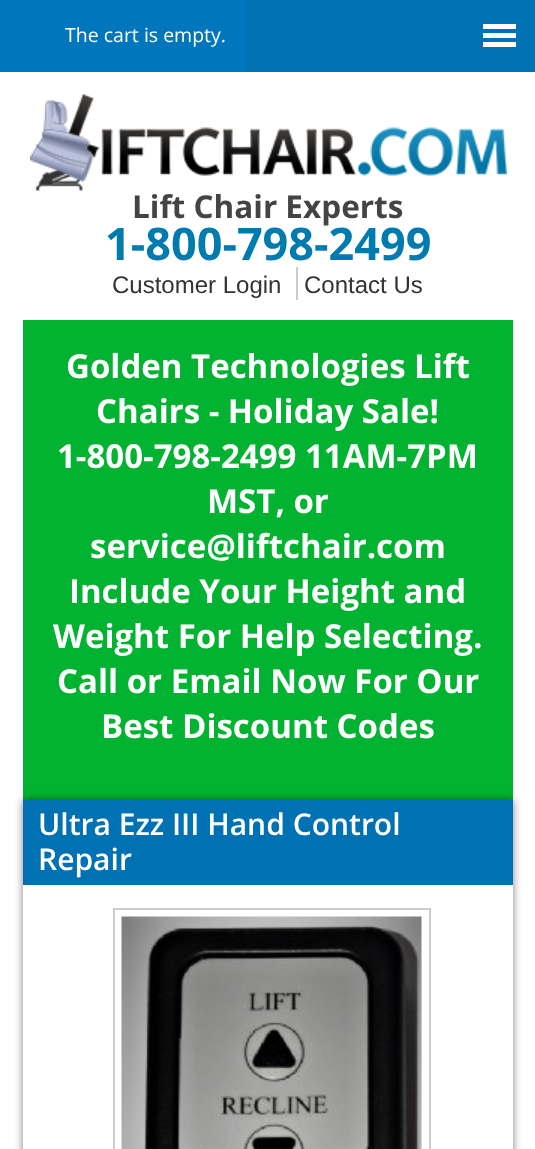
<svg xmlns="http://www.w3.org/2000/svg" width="535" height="1149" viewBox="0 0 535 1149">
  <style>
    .t1 { font: 19.5px Open Sans; fill: #fff; }
    .t2 { font: bold 31.5px Open Sans; fill: #444; }
    .t3 { font: bold 45px Open Sans; fill: #007bb0; }
    .t4 { font: 24px Liberation Sans; fill: #333; }
    .t5 { font: bold 33px Open Sans; fill: #fff; }
    .t6 { font: 600 30px Open Sans; fill: #fff; }
  </style>
  <defs>
    <clipPath id="clip1"><path d="M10 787H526V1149H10ZM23 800H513V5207H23Z" clip-rule="evenodd"/></clipPath>
  </defs>
  <rect width="100%" height="100%" fill="#fff"/>
  <rect x="0" y="0" width="246" height="72" fill="#0077bc"/>
  <text x="65" y="42" class="t1">The cart is empty.</text>
  <rect x="246" y="0" width="289" height="72" fill="#0071b3"/>
  <rect x="483" y="24" width="33" height="5" fill="#fff"/>
  <rect x="483" y="33" width="33" height="5" fill="#fff"/>
  <rect x="483" y="42" width="33" height="5" fill="#fff"/>
  <image x="30" y="94" width="477" height="97" href="images/1.png"/>
  <text x="132" y="218" class="t2">Lift Chair Experts</text>
  <text x="105" y="260" class="t3">1-800-798-2499</text>
  <text x="112" y="293" class="t4">Customer Login</text>
  <text x="304" y="293" class="t4">Contact Us</text>
  <rect x="296" y="267" width="2" height="33" fill="#ccc"/>
  <rect x="23" y="320" width="490" height="480" fill="#01b330"/>
  <text x="66" y="378" class="t5">Golden Technologies Lift</text>
  <text x="96" y="423" class="t5">Chairs - Holiday Sale!</text>
  <text x="57" y="468" class="t5">1-800-798-2499 11AM-7PM</text>
  <text x="207" y="513" class="t5">MST, or</text>
  <text x="90" y="558" class="t5">service@liftchair.com</text>
  <text x="69" y="603" class="t5">Include Your Height and</text>
  <text x="53" y="648" class="t5">Weight For Help Selecting.</text>
  <text x="57" y="693" class="t5">Call or Email Now For Our</text>
  <text x="101" y="738" class="t5">Best Discount Codes</text>
  <g clip-path="url(#clip1)">
    <rect x="23" y="800" width="490" height="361" fill="#00000080" filter="blur(4px)"/>
  </g>
  <rect x="23" y="800" width="490" height="85" fill="#0071b3"/>
  <text x="38" y="835" class="t6">Ultra Ezz III Hand Control</text>
  <text x="38" y="870" class="t6">Repair</text>
  <rect x="114" y="909" width="316" height="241" fill="none" stroke="#ccc" stroke-width="2"/>
  <image x="121" y="916" width="301" height="233" href="images/2.png"/>
</svg>
